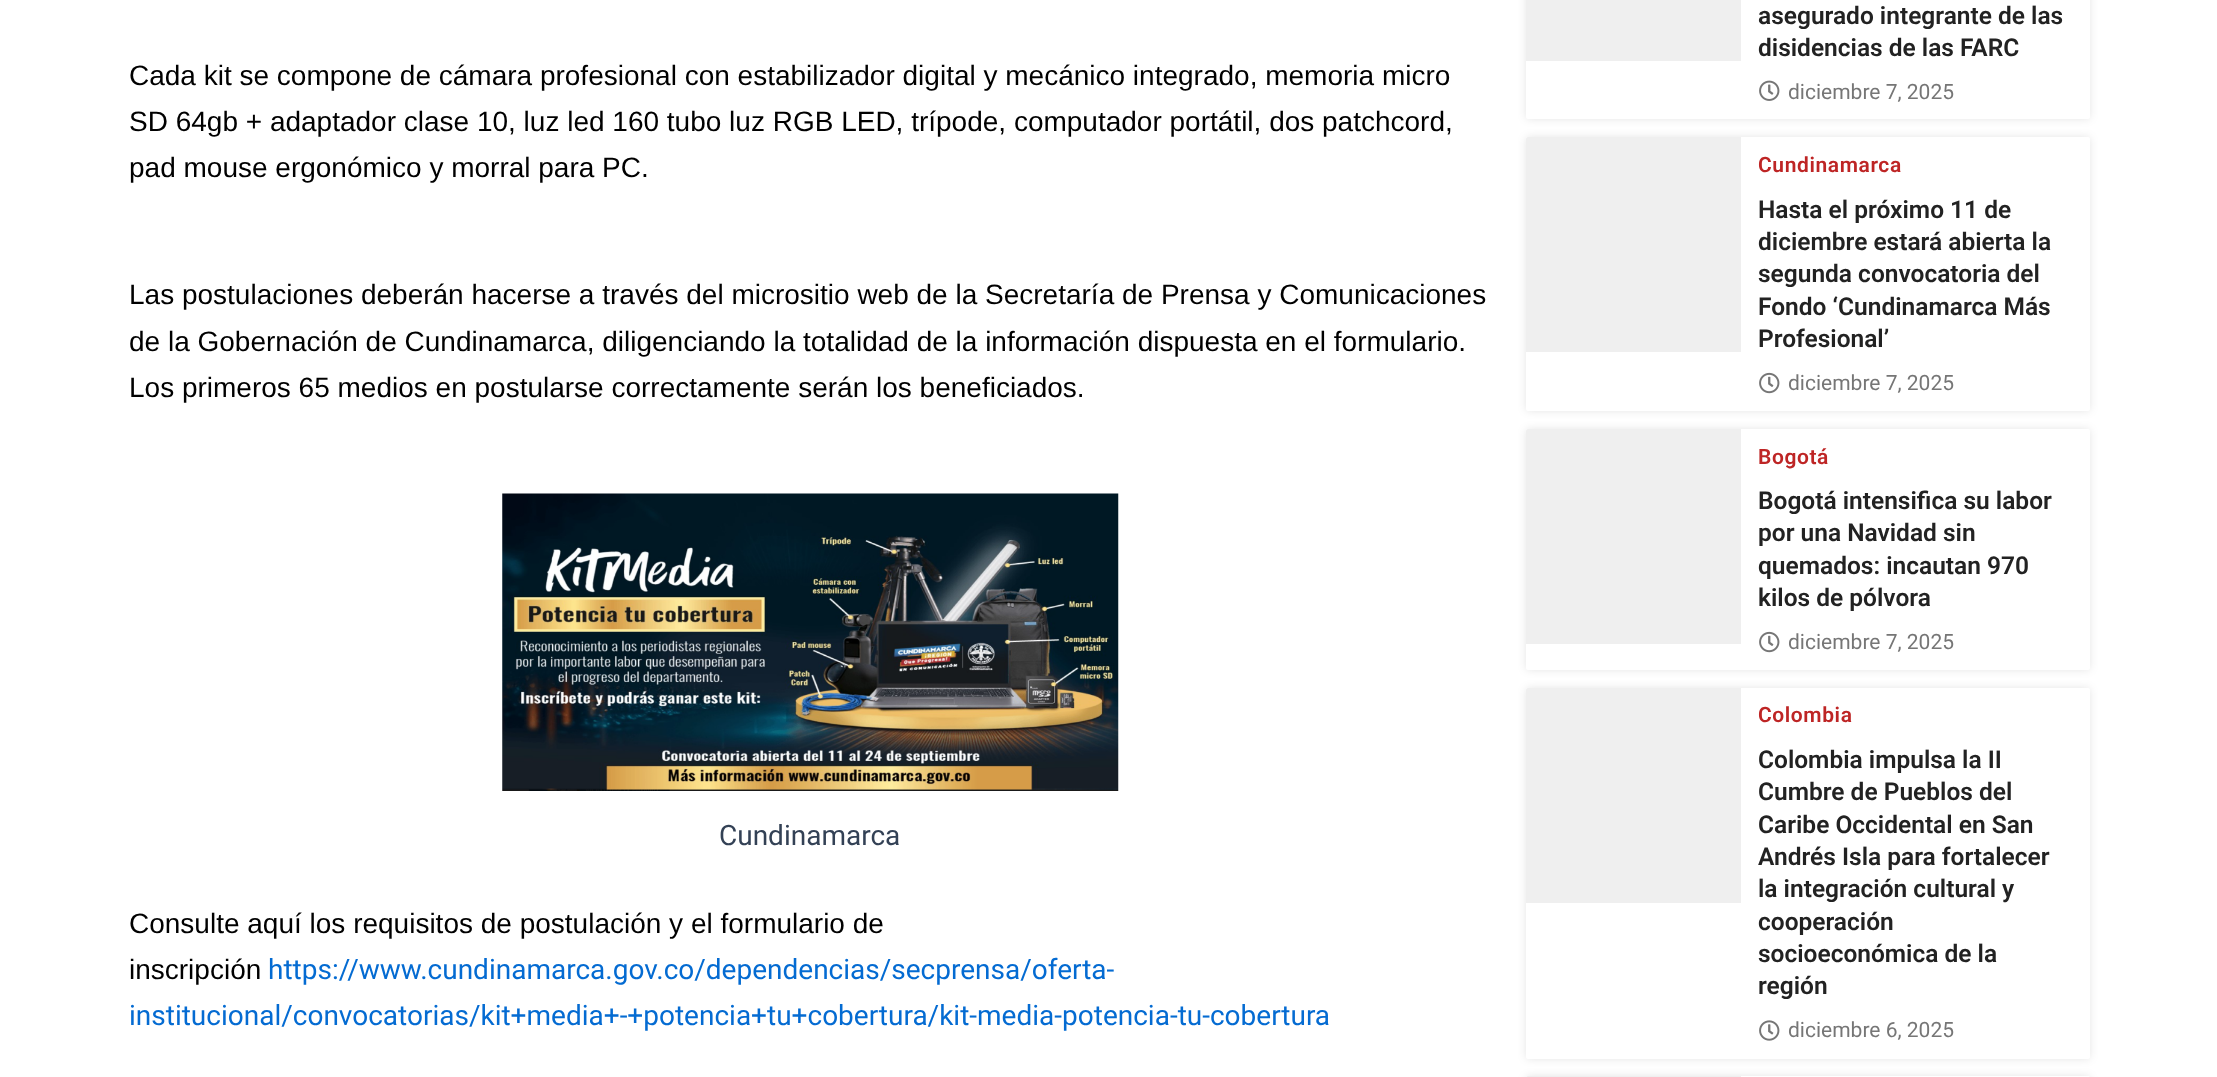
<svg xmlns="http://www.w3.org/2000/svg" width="2217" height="1077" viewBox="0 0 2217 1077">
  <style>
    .t1 { font: 28px Liberation Sans; fill: #000; }
    .t2 { font: 28px Roboto; fill: #334155; }
    .t3 { font: 28px Roboto; fill: #046bd2; }
    .t4 { font: 600 24.5px Roboto; fill: #222; }
    .t5 { font: 21px Roboto; fill: #767676; }
    .t6 { font: 600 21px Roboto; letter-spacing: 0.6px; fill: #be2525; }
  </style>
  <rect width="100%" height="100%" fill="#fff"/>
  <text x="129" y="85" class="t1">Cada kit se compone de cámara profesional con estabilizador digital y mecánico integrado, memoria micro</text>
  <text x="129" y="131" class="t1">SD 64gb + adaptador clase 10, luz led 160 tubo luz RGB LED, trípode, computador portátil, dos patchcord,</text>
  <text x="129" y="177" class="t1">pad mouse ergonómico y morral para PC.</text>
  <text x="129" y="304" class="t1">Las postulaciones deberán hacerse a través del micrositio web de la Secretaría de Prensa y Comunicaciones</text>
  <text x="129" y="351" class="t1">de la Gobernación de Cundinamarca, diligenciando la totalidad de la información dispuesta en el formulario.</text>
  <text x="129" y="397" class="t1">Los primeros 65 medios en postularse correctamente serán los beneficiados.</text>
  <image x="502" y="493" width="617" height="298" href="images/1.png"/>
  <text x="719" y="845" class="t2">Cundinamarca</text>
  <text x="129" y="933" class="t1">Consulte aquí los requisitos de postulación y el formulario de</text>
  <text x="129" y="979" class="t1">inscripción</text>
  <text x="268" y="979" class="t3">https://www.cundinamarca.gov.co/dependencias/secprensa/oferta-</text>
  <text x="129" y="1025" class="t3">institucional/convocatorias/kit+media+-+potencia+tu+cobertura/kit-media-potencia-tu-cobertura</text>
  <rect x="1526" y="-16" width="564" height="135" rx="2" fill="#0000001a" filter="blur(4.5px)"/>
  <rect x="1526" y="-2" width="564" height="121" rx="2" fill="#fff"/>
  <rect x="1526" y="0" width="215" height="61" fill="#efefef"/>
  <text x="1758" y="24" class="t4">asegurado integrante de las</text>
  <text x="1758" y="56" class="t4">disidencias de las FARC</text>
  <image x="1759" y="80" width="21" height="21" href="images/2.png"/>
  <text x="1788" y="99" class="t5">diciembre 7, 2025</text>
  <rect x="1526" y="137" width="564" height="274" rx="2" fill="#0000001a" filter="blur(4.5px)"/>
  <rect x="1526" y="137" width="564" height="274" rx="2" fill="#fff"/>
  <path d="M1528 137H1741V352H1526V139C1526 138 1527 137 1528 137Z" fill="#efefef"/>
  <text x="1758" y="172" class="t6">Cundinamarca</text>
  <text x="1758" y="218" class="t4">Hasta el próximo 11 de</text>
  <text x="1758" y="250" class="t4">diciembre estará abierta la</text>
  <text x="1758" y="282" class="t4">segunda convocatoria del</text>
  <text x="1758" y="315" class="t4">Fondo ‘Cundinamarca Más</text>
  <text x="1758" y="347" class="t4">Profesional’</text>
  <image x="1759" y="372" width="21" height="22" href="images/3.png"/>
  <text x="1788" y="390" class="t5">diciembre 7, 2025</text>
  <rect x="1526" y="429" width="564" height="241" rx="2" fill="#0000001a" filter="blur(4.5px)"/>
  <rect x="1526" y="429" width="564" height="241" rx="2" fill="#fff"/>
  <path d="M1528 429H1741V644H1526V431C1526 430 1527 429 1528 429Z" fill="#efefef"/>
  <text x="1758" y="464" class="t6">Bogotá</text>
  <text x="1758" y="509" class="t4">Bogotá intensifica su labor</text>
  <text x="1758" y="541" class="t4">por una Navidad sin</text>
  <text x="1758" y="574" class="t4">quemados: incautan 970</text>
  <text x="1758" y="606" class="t4">kilos de pólvora</text>
  <image x="1759" y="631" width="21" height="22" href="images/3.png"/>
  <text x="1788" y="649" class="t5">diciembre 7, 2025</text>
  <rect x="1526" y="688" width="564" height="371" rx="2" fill="#0000001a" filter="blur(4.5px)"/>
  <rect x="1526" y="688" width="564" height="371" rx="2" fill="#fff"/>
  <path d="M1528 688H1741V903H1526V690C1526 689 1527 688 1528 688Z" fill="#efefef"/>
  <text x="1758" y="722" class="t6">Colombia</text>
  <text x="1758" y="768" class="t4">Colombia impulsa la II</text>
  <text x="1758" y="800" class="t4">Cumbre de Pueblos del</text>
  <text x="1758" y="833" class="t4">Caribe Occidental en San</text>
  <text x="1758" y="865" class="t4">Andrés Isla para fortalecer</text>
  <text x="1758" y="897" class="t4">la integración cultural y</text>
  <text x="1758" y="930" class="t4">cooperación</text>
  <text x="1758" y="962" class="t4">socioeconómica de la</text>
  <text x="1758" y="994" class="t4">región</text>
  <image x="1759" y="1020" width="21" height="21" href="images/4.png"/>
  <text x="1788" y="1037" class="t5">diciembre 6, 2025</text>
  <rect x="1526" y="1076" width="564" height="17" rx="2" fill="#0000001a" filter="blur(4.5px)"/>
  <rect x="1526" y="1076" width="564" height="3" rx="2" fill="#fff"/>
  <path d="M1528 1076H1741V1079H1526V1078C1526 1077 1527 1076 1528 1076Z" fill="#efefef"/>
</svg>
